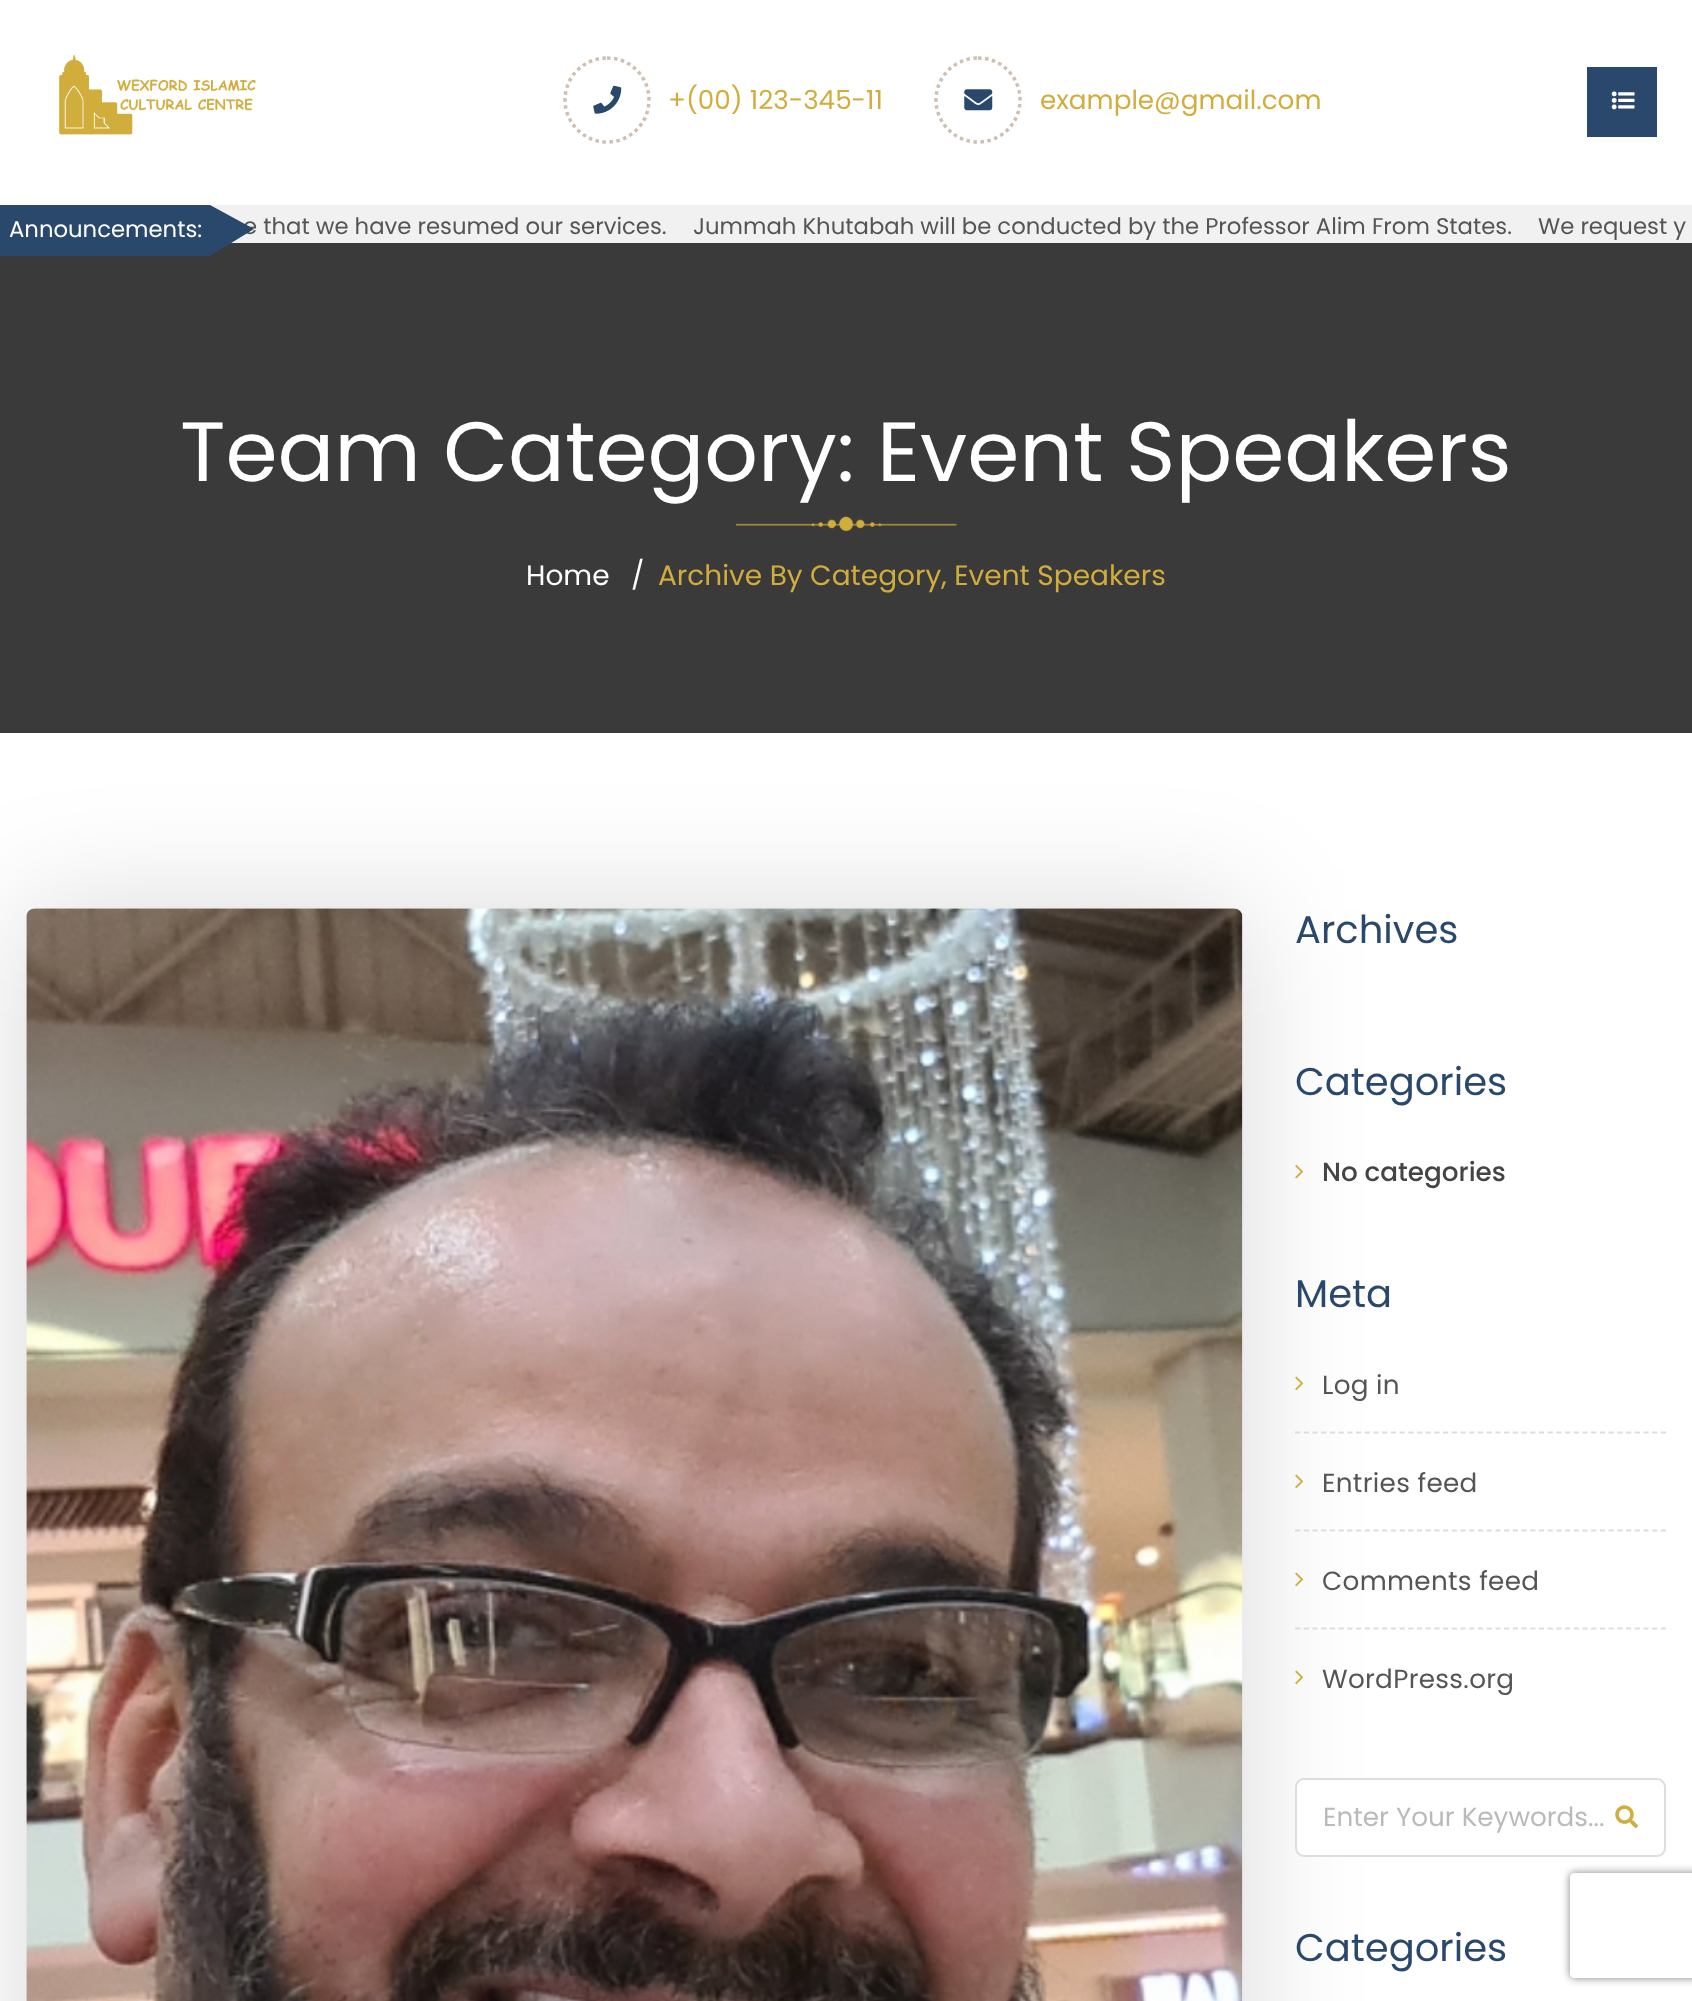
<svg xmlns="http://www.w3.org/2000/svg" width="1692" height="2001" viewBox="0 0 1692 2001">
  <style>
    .t1 { font: 26.25px Poppins; fill: #d1ad3c; }
    .t2 { font: 22.75px Poppins; fill: #fff; }
    .t3 { font: 22.75px Poppins; fill: #555; }
    .t4 { font: 84px Poppins; fill: #fff; }
    .t5 { font: 28px Poppins; fill: #fff; }
    .t6 { font: 28px Poppins; fill: #d1ad3c; }
    .t7 { font: 38.5px Poppins; fill: #2a486c; }
    .t8 { font: 500 26.25px Poppins; fill: #444; }
    .t9 { font: 26.25px Poppins; letter-spacing: 0.3px; fill: #555; }
    .t10 { font: 26.25px Poppins; fill: #bababa; }
  </style>
  <defs>
    <clipPath id="clip1"><path d="M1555 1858H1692V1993H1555ZM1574 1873H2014C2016 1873 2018 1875 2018 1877V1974C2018 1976 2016 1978 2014 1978H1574C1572 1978 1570 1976 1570 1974V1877C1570 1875 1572 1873 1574 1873Z" clip-rule="evenodd"/></clipPath>
  </defs>
  <rect width="100%" height="100%" fill="#fff"/>
  <image x="59" y="54" width="197" height="81" href="images/1.png"/>
  <path d="M607 58C630.5 58 649 76.5 649 100C649 123 630.5 142 607 142C584 142 565 123 565 100C565 76.5 584 58 607 58Z" fill="none" stroke="#cebfb3" stroke-width="3.5" stroke-dasharray="3.5 3.5"/>
  <image x="593" y="85" width="29" height="29" href="images/2.png"/>
  <text x="668" y="109" class="t1">+(00) 123-345-11</text>
  <path d="M978 58C1001.5 58 1020 76.5 1020 100C1020 123 1001.5 142 978 142C955 142 936 123 936 100C936 76.5 955 58 978 58Z" fill="none" stroke="#cebfb3" stroke-width="3.5" stroke-dasharray="3.5 3.5"/>
  <image x="964" y="89" width="29" height="22" href="images/3.png"/>
  <text x="1040" y="109" class="t1">example@gmail.com</text>
  <rect x="1587" y="67" width="70" height="70" fill="#2a486c"/>
  <image x="1611" y="91" width="24" height="19" href="images/4.png"/>
  <rect x="210" y="205" width="1482" height="38" fill="#f1f1f1"/>
  <rect x="0" y="243" width="1692" height="490" fill="#3a3a3a"/>
  <rect x="0" y="205" width="210" height="51" fill="#2a486c"/>
  <text x="9" y="237" class="t2">Announcements:</text>
  <text x="243" y="234" class="t3">e that we have resumed our services.</text>
  <path d="M210 256V205L254 229Z" fill="#2a486c"/>
  <text x="693" y="234" class="t3">Jummah Khutabah will be conducted by the Professor Alim From States.</text>
  <text x="1538" y="234" class="t3">We request y</text>
  <text x="180" y="481" class="t4">Team Category: Event Speakers</text>
  <image x="735" y="516" width="222" height="16" href="images/5.png"/>
  <text x="526" y="585" class="t5">Home</text>
  <text x="631" y="585" class="t5">/</text>
  <text x="658" y="585" class="t6">Archive By Category, Event Speakers</text>
  <rect x="26" y="908" width="1217" height="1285" rx="9" fill="#00000026" filter="blur(61px)"/>
  <image x="26" y="908" width="1217" height="1093" href="images/6.png"/>
  <text x="1295" y="943" class="t7">Archives</text>
  <text x="1295" y="1095" class="t7">Categories</text>
  <image x="1295" y="1164" width="9" height="15" href="images/7.png"/>
  <text x="1322" y="1181" class="t8">No categories</text>
  <text x="1295" y="1307" class="t7">Meta</text>
  <image x="1295" y="1376" width="9" height="15" href="images/8.png"/>
  <text x="1322" y="1394" class="t9">Log in</text>
  <path d="M1295 1432.5H1666" fill="none" stroke="#ddd" stroke-width="1.8" stroke-dasharray="5.25 3.46"/>
  <image x="1295" y="1474" width="9" height="15" href="images/8.png"/>
  <text x="1322" y="1492" class="t9">Entries feed</text>
  <path d="M1295 1530.5H1666" fill="none" stroke="#ddd" stroke-width="1.8" stroke-dasharray="5.25 3.46"/>
  <image x="1295" y="1572" width="9" height="15" href="images/8.png"/>
  <text x="1322" y="1590" class="t9">Comments feed</text>
  <path d="M1295 1628.5H1666" fill="none" stroke="#ddd" stroke-width="1.8" stroke-dasharray="5.25 3.46"/>
  <image x="1295" y="1670" width="9" height="15" href="images/8.png"/>
  <text x="1322" y="1688" class="t9">WordPress.org</text>
  <rect x="1296" y="1779" width="369" height="77" rx="8" fill="#fff" stroke="#ddd" stroke-width="2"/>
  <text x="1323" y="1826" class="t10">Enter Your Keywords...</text>
  <image x="1615" y="1805" width="23" height="24" href="images/9.png"/>
  <text x="1295" y="1961" class="t7">Categories</text>
  <g clip-path="url(#clip1)">
    <rect x="1570" y="1873" width="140" height="105" rx="4" fill="#808080" filter="blur(4.5px)"/>
  </g>
</svg>
